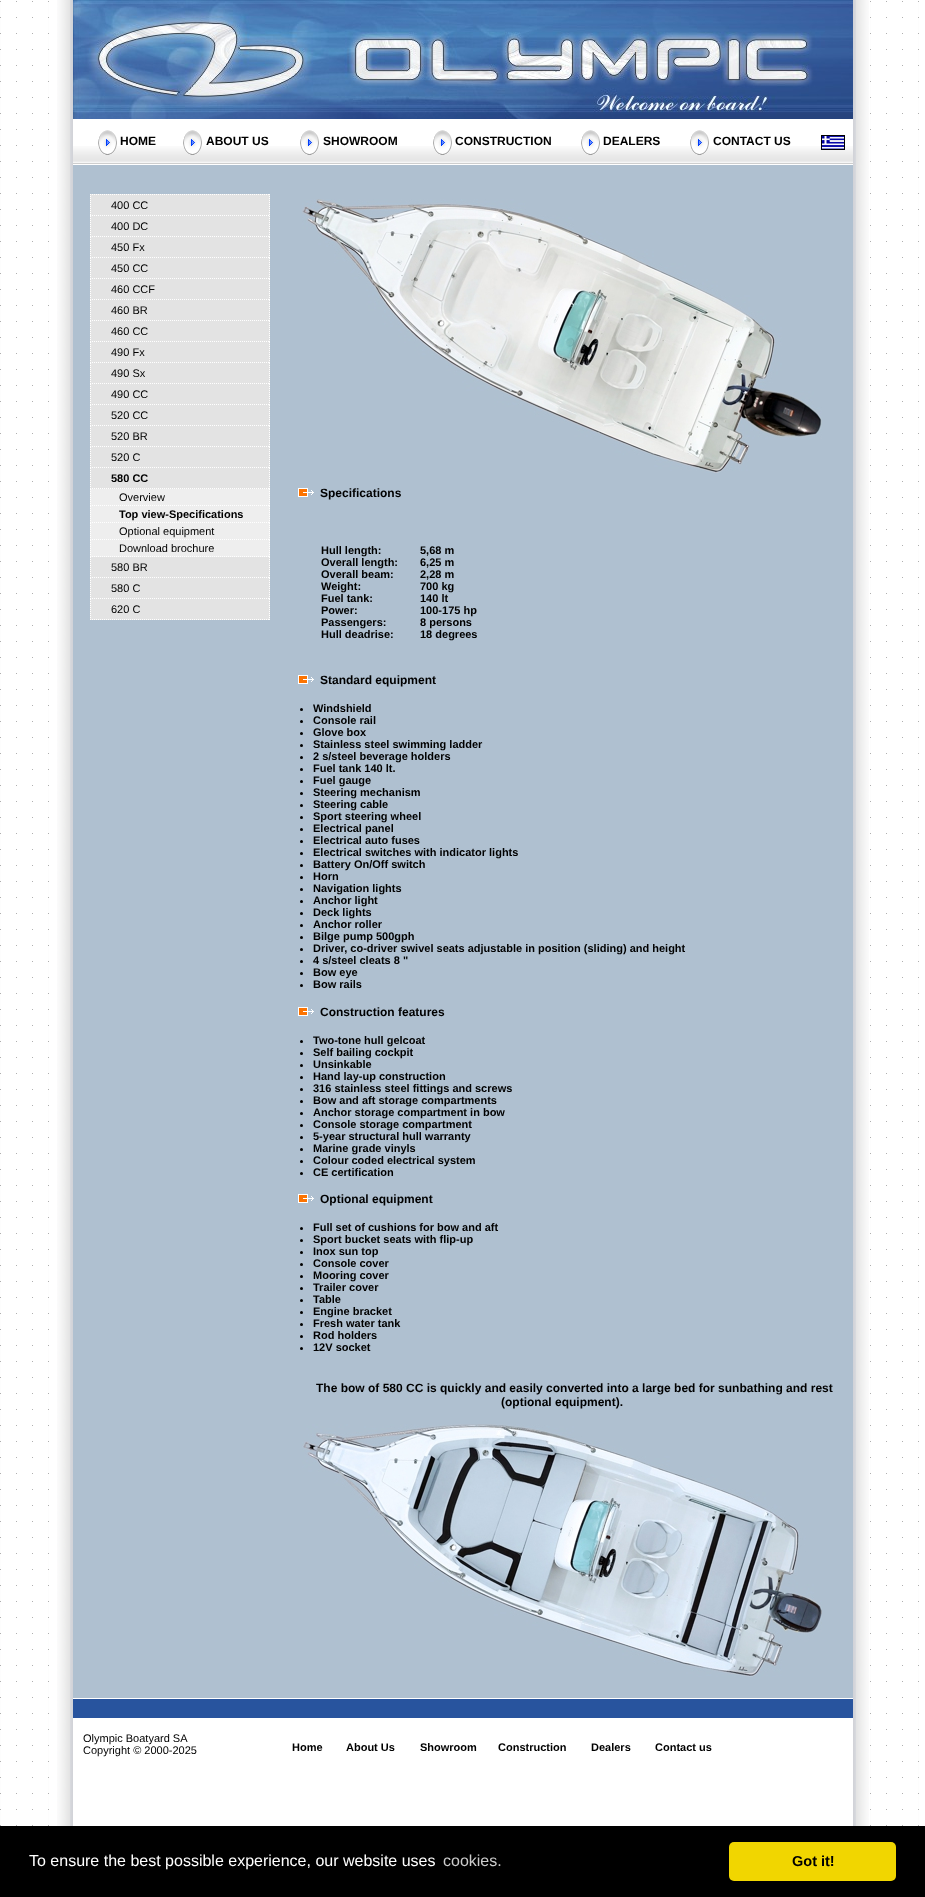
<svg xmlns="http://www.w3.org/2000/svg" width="925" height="1897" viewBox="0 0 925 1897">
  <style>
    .t1 { font: bold 12px Liberation Sans; fill: #000; }
    .t2 { font: 11px Liberation Sans; fill: #000; }
    .t3 { font: bold 11px Liberation Sans; fill: #000; }
    .t4 { font: 16px Liberation Sans; fill: #fff; }
    .t5 { font: 16px Liberation Sans; fill: #ccc; }
    .t6 { font: bold 14.5px Liberation Sans; fill: #000; }
  </style>
  <rect width="100%" height="100%" fill="#fff"/>
  <image x="0" y="1" width="49" height="1825" href="images/1.png"/>
  <image x="57" y="0" width="16" height="1826" href="images/2.png"/>
  <image x="73" y="0" width="780" height="119" href="images/3.png"/>
  <image x="73" y="146" width="780" height="18" href="images/4.png"/>
  <image x="98" y="130" width="19" height="25" href="images/5.png"/>
  <text x="120" y="145" class="t1">HOME</text>
  <image x="183" y="130" width="19" height="25" href="images/5.png"/>
  <text x="206" y="145" class="t1">ABOUT US</text>
  <image x="300" y="130" width="19" height="25" href="images/5.png"/>
  <text x="323" y="145" class="t1">SHOWROOM</text>
  <image x="433" y="130" width="19" height="25" href="images/5.png"/>
  <text x="455" y="145" class="t1">CONSTRUCTION</text>
  <image x="581" y="130" width="19" height="25" href="images/5.png"/>
  <text x="603" y="145" class="t1">DEALERS</text>
  <image x="690" y="130" width="19" height="25" href="images/5.png"/>
  <text x="713" y="145" class="t1">CONTACT US</text>
  <image x="821" y="135" width="24" height="15" href="images/6.png"/>
  <rect x="73" y="165" width="780" height="1533" fill="#afc0d0"/>
  <rect x="90" y="194" width="180" height="295" fill="#e3e3e3"/>
  <path d="M90 194.5H270" fill="none" stroke="#fff" stroke-dasharray="1 1"/>
  <path d="M269.5 194V216" fill="none" stroke="#fff" stroke-dasharray="1 1"/>
  <path d="M90 215.5H270" fill="none" stroke="#fff" stroke-dasharray="1 1"/>
  <path d="M90.5 194V216" fill="none" stroke="#fff" stroke-dasharray="1 1"/>
  <text x="111" y="209" class="t2">400 CC</text>
  <path d="M269.5 216V237" fill="none" stroke="#fff" stroke-dasharray="1 1"/>
  <path d="M90 236.5H270" fill="none" stroke="#fff" stroke-dasharray="1 1"/>
  <path d="M90.5 216V237" fill="none" stroke="#fff" stroke-dasharray="1 1"/>
  <text x="111" y="230" class="t2">400 DC</text>
  <path d="M269.5 237V258" fill="none" stroke="#fff" stroke-dasharray="1 1"/>
  <path d="M90 257.5H270" fill="none" stroke="#fff" stroke-dasharray="1 1"/>
  <path d="M90.5 237V258" fill="none" stroke="#fff" stroke-dasharray="1 1"/>
  <text x="111" y="251" class="t2">450 Fx</text>
  <path d="M269.5 258V279" fill="none" stroke="#fff" stroke-dasharray="1 1"/>
  <path d="M90 278.5H270" fill="none" stroke="#fff" stroke-dasharray="1 1"/>
  <path d="M90.5 258V279" fill="none" stroke="#fff" stroke-dasharray="1 1"/>
  <text x="111" y="272" class="t2">450 CC</text>
  <path d="M269.5 279V300" fill="none" stroke="#fff" stroke-dasharray="1 1"/>
  <path d="M90 299.5H270" fill="none" stroke="#fff" stroke-dasharray="1 1"/>
  <path d="M90.5 279V300" fill="none" stroke="#fff" stroke-dasharray="1 1"/>
  <text x="111" y="293" class="t2">460 CCF</text>
  <path d="M269.5 300V321" fill="none" stroke="#fff" stroke-dasharray="1 1"/>
  <path d="M90 320.5H270" fill="none" stroke="#fff" stroke-dasharray="1 1"/>
  <path d="M90.5 300V321" fill="none" stroke="#fff" stroke-dasharray="1 1"/>
  <text x="111" y="314" class="t2">460 BR</text>
  <path d="M269.5 321V342" fill="none" stroke="#fff" stroke-dasharray="1 1"/>
  <path d="M90 341.5H270" fill="none" stroke="#fff" stroke-dasharray="1 1"/>
  <path d="M90.5 321V342" fill="none" stroke="#fff" stroke-dasharray="1 1"/>
  <text x="111" y="335" class="t2">460 CC</text>
  <path d="M269.5 342V363" fill="none" stroke="#fff" stroke-dasharray="1 1"/>
  <path d="M90 362.5H270" fill="none" stroke="#fff" stroke-dasharray="1 1"/>
  <path d="M90.5 342V363" fill="none" stroke="#fff" stroke-dasharray="1 1"/>
  <text x="111" y="356" class="t2">490 Fx</text>
  <path d="M269.5 363V384" fill="none" stroke="#fff" stroke-dasharray="1 1"/>
  <path d="M90 383.5H270" fill="none" stroke="#fff" stroke-dasharray="1 1"/>
  <path d="M90.5 363V384" fill="none" stroke="#fff" stroke-dasharray="1 1"/>
  <text x="111" y="377" class="t2">490 Sx</text>
  <path d="M269.5 384V405" fill="none" stroke="#fff" stroke-dasharray="1 1"/>
  <path d="M90 404.5H270" fill="none" stroke="#fff" stroke-dasharray="1 1"/>
  <path d="M90.5 384V405" fill="none" stroke="#fff" stroke-dasharray="1 1"/>
  <text x="111" y="398" class="t2">490 CC</text>
  <path d="M269.5 405V426" fill="none" stroke="#fff" stroke-dasharray="1 1"/>
  <path d="M90 425.5H270" fill="none" stroke="#fff" stroke-dasharray="1 1"/>
  <path d="M90.5 405V426" fill="none" stroke="#fff" stroke-dasharray="1 1"/>
  <text x="111" y="419" class="t2">520 CC</text>
  <path d="M269.5 426V447" fill="none" stroke="#fff" stroke-dasharray="1 1"/>
  <path d="M90 446.5H270" fill="none" stroke="#fff" stroke-dasharray="1 1"/>
  <path d="M90.5 426V447" fill="none" stroke="#fff" stroke-dasharray="1 1"/>
  <text x="111" y="440" class="t2">520 BR</text>
  <path d="M269.5 447V468" fill="none" stroke="#fff" stroke-dasharray="1 1"/>
  <path d="M90 467.5H270" fill="none" stroke="#fff" stroke-dasharray="1 1"/>
  <path d="M90.5 447V468" fill="none" stroke="#fff" stroke-dasharray="1 1"/>
  <text x="111" y="461" class="t2">520 C</text>
  <path d="M269.5 468V489" fill="none" stroke="#fff" stroke-dasharray="1 1"/>
  <path d="M90 488.5H270" fill="none" stroke="#fff" stroke-dasharray="1 1"/>
  <path d="M90.5 468V489" fill="none" stroke="#fff" stroke-dasharray="1 1"/>
  <text x="111" y="482" class="t3">580 CC</text>
  <rect x="90" y="489" width="180" height="68" fill="#eee"/>
  <path d="M269.5 489V506" fill="none" stroke="#fff" stroke-dasharray="1 1"/>
  <path d="M90 505.5H270" fill="none" stroke="#fff" stroke-dasharray="1 1"/>
  <path d="M90.5 489V506" fill="none" stroke="#fff" stroke-dasharray="1 1"/>
  <text x="119" y="501" class="t2">Overview</text>
  <path d="M269.5 506V523" fill="none" stroke="#fff" stroke-dasharray="1 1"/>
  <path d="M90 522.5H270" fill="none" stroke="#fff" stroke-dasharray="1 1"/>
  <path d="M90.5 506V523" fill="none" stroke="#fff" stroke-dasharray="1 1"/>
  <text x="119" y="518" class="t3">Top view-Specifications</text>
  <path d="M269.5 523V540" fill="none" stroke="#fff" stroke-dasharray="1 1"/>
  <path d="M90 539.5H270" fill="none" stroke="#fff" stroke-dasharray="1 1"/>
  <path d="M90.5 523V540" fill="none" stroke="#fff" stroke-dasharray="1 1"/>
  <text x="119" y="535" class="t2">Optional equipment</text>
  <path d="M269.5 540V557" fill="none" stroke="#fff" stroke-dasharray="1 1"/>
  <path d="M90 556.5H270" fill="none" stroke="#fff" stroke-dasharray="1 1"/>
  <path d="M90.5 540V557" fill="none" stroke="#fff" stroke-dasharray="1 1"/>
  <text x="119" y="552" class="t2">Download brochure</text>
  <rect x="90" y="557" width="180" height="63" fill="#e3e3e3"/>
  <path d="M269.5 557V578" fill="none" stroke="#fff" stroke-dasharray="1 1"/>
  <path d="M90 577.5H270" fill="none" stroke="#fff" stroke-dasharray="1 1"/>
  <path d="M90.5 557V578" fill="none" stroke="#fff" stroke-dasharray="1 1"/>
  <text x="111" y="571" class="t2">580 BR</text>
  <path d="M269.5 578V599" fill="none" stroke="#fff" stroke-dasharray="1 1"/>
  <path d="M90 598.5H270" fill="none" stroke="#fff" stroke-dasharray="1 1"/>
  <path d="M90.5 578V599" fill="none" stroke="#fff" stroke-dasharray="1 1"/>
  <text x="111" y="592" class="t2">580 C</text>
  <path d="M269.5 599V620" fill="none" stroke="#fff" stroke-dasharray="1 1"/>
  <path d="M90 619.5H270" fill="none" stroke="#fff" stroke-dasharray="1 1"/>
  <path d="M90.5 599V620" fill="none" stroke="#fff" stroke-dasharray="1 1"/>
  <text x="111" y="613" class="t2">620 C</text>
  <image x="302" y="199" width="520" height="274" href="images/7.png"/>
  <image x="298" y="488" width="16" height="9" href="images/8.png"/>
  <text x="320" y="497" class="t1">Specifications</text>
  <text x="321" y="554" class="t3">Hull length:</text>
  <text x="321" y="566" class="t3">Overall length:</text>
  <text x="321" y="578" class="t3">Overall beam:</text>
  <text x="321" y="590" class="t3">Weight:</text>
  <text x="321" y="602" class="t3">Fuel tank:</text>
  <text x="321" y="614" class="t3">Power:</text>
  <text x="321" y="626" class="t3">Passengers:</text>
  <text x="321" y="638" class="t3">Hull deadrise:</text>
  <text x="420" y="554" class="t3">5,68 m</text>
  <text x="420" y="566" class="t3">6,25 m</text>
  <text x="420" y="578" class="t3">2,28 m</text>
  <text x="420" y="590" class="t3">700 kg</text>
  <text x="420" y="602" class="t3">140 lt</text>
  <text x="420" y="614" class="t3">100-175 hp</text>
  <text x="420" y="626" class="t3">8 persons</text>
  <text x="420" y="638" class="t3">18 degrees</text>
  <image x="298" y="675" width="16" height="9" href="images/8.png"/>
  <text x="320" y="684" class="t1">Standard equipment</text>
  <circle cx="301.5" cy="709.5" r="1.5" fill="#000"/>
  <text x="313" y="712" class="t3">Windshield</text>
  <circle cx="301.5" cy="721.5" r="1.5" fill="#000"/>
  <text x="313" y="724" class="t3">Console rail</text>
  <circle cx="301.5" cy="733.5" r="1.5" fill="#000"/>
  <text x="313" y="736" class="t3">Glove box</text>
  <circle cx="301.5" cy="745.5" r="1.5" fill="#000"/>
  <text x="313" y="748" class="t3">Stainless steel swimming ladder</text>
  <circle cx="301.5" cy="757.5" r="1.5" fill="#000"/>
  <text x="313" y="760" class="t3">2 s/steel beverage holders</text>
  <circle cx="301.5" cy="769.5" r="1.5" fill="#000"/>
  <text x="313" y="772" class="t3">Fuel tank 140 lt.</text>
  <circle cx="301.5" cy="781.5" r="1.5" fill="#000"/>
  <text x="313" y="784" class="t3">Fuel gauge</text>
  <circle cx="301.5" cy="793.5" r="1.5" fill="#000"/>
  <text x="313" y="796" class="t3">Steering mechanism</text>
  <circle cx="301.5" cy="805.5" r="1.5" fill="#000"/>
  <text x="313" y="808" class="t3">Steering cable</text>
  <circle cx="301.5" cy="817.5" r="1.5" fill="#000"/>
  <text x="313" y="820" class="t3">Sport steering wheel</text>
  <circle cx="301.5" cy="829.5" r="1.5" fill="#000"/>
  <text x="313" y="832" class="t3">Electrical panel</text>
  <circle cx="301.5" cy="841.5" r="1.5" fill="#000"/>
  <text x="313" y="844" class="t3">Electrical auto fuses</text>
  <circle cx="301.5" cy="853.5" r="1.5" fill="#000"/>
  <text x="313" y="856" class="t3">Electrical switches with indicator lights</text>
  <circle cx="301.5" cy="865.5" r="1.5" fill="#000"/>
  <text x="313" y="868" class="t3">Battery On/Off switch</text>
  <circle cx="301.5" cy="877.5" r="1.5" fill="#000"/>
  <text x="313" y="880" class="t3">Horn</text>
  <circle cx="301.5" cy="889.5" r="1.5" fill="#000"/>
  <text x="313" y="892" class="t3">Navigation lights</text>
  <circle cx="301.5" cy="901.5" r="1.5" fill="#000"/>
  <text x="313" y="904" class="t3">Anchor light</text>
  <circle cx="301.5" cy="913.5" r="1.5" fill="#000"/>
  <text x="313" y="916" class="t3">Deck lights</text>
  <circle cx="301.5" cy="925.5" r="1.5" fill="#000"/>
  <text x="313" y="928" class="t3">Anchor roller</text>
  <circle cx="301.5" cy="937.5" r="1.5" fill="#000"/>
  <text x="313" y="940" class="t3">Bilge pump 500gph</text>
  <circle cx="301.5" cy="949.5" r="1.5" fill="#000"/>
  <text x="313" y="952" class="t3">Driver, co-driver swivel seats adjustable in position (sliding) and height</text>
  <circle cx="301.5" cy="961.5" r="1.5" fill="#000"/>
  <text x="313" y="964" class="t3">4 s/steel cleats 8 "</text>
  <circle cx="301.5" cy="973.5" r="1.5" fill="#000"/>
  <text x="313" y="976" class="t3">Bow eye</text>
  <circle cx="301.5" cy="985.5" r="1.5" fill="#000"/>
  <text x="313" y="988" class="t3">Bow rails</text>
  <image x="298" y="1007" width="16" height="9" href="images/8.png"/>
  <text x="320" y="1016" class="t1">Construction features</text>
  <circle cx="301.5" cy="1041.5" r="1.5" fill="#000"/>
  <text x="313" y="1044" class="t3">Two-tone hull gelcoat</text>
  <circle cx="301.5" cy="1053.5" r="1.5" fill="#000"/>
  <text x="313" y="1056" class="t3">Self bailing cockpit</text>
  <circle cx="301.5" cy="1065.5" r="1.5" fill="#000"/>
  <text x="313" y="1068" class="t3">Unsinkable</text>
  <circle cx="301.5" cy="1077.5" r="1.5" fill="#000"/>
  <text x="313" y="1080" class="t3">Hand lay-up construction</text>
  <circle cx="301.5" cy="1089.5" r="1.5" fill="#000"/>
  <text x="313" y="1092" class="t3">316 stainless steel fittings and screws</text>
  <circle cx="301.5" cy="1101.5" r="1.5" fill="#000"/>
  <text x="313" y="1104" class="t3">Bow and aft storage compartments</text>
  <circle cx="301.5" cy="1113.5" r="1.5" fill="#000"/>
  <text x="313" y="1116" class="t3">Anchor storage compartment in bow</text>
  <circle cx="301.5" cy="1125.5" r="1.5" fill="#000"/>
  <text x="313" y="1128" class="t3">Console storage compartment</text>
  <circle cx="301.5" cy="1137.5" r="1.5" fill="#000"/>
  <text x="313" y="1140" class="t3">5-year structural hull warranty</text>
  <circle cx="301.5" cy="1149.5" r="1.5" fill="#000"/>
  <text x="313" y="1152" class="t3">Marine grade vinyls</text>
  <circle cx="301.5" cy="1161.5" r="1.5" fill="#000"/>
  <text x="313" y="1164" class="t3">Colour coded electrical system</text>
  <circle cx="301.5" cy="1173.5" r="1.5" fill="#000"/>
  <text x="313" y="1176" class="t3">CE certification</text>
  <image x="298" y="1194" width="16" height="9" href="images/8.png"/>
  <text x="320" y="1203" class="t1">Optional equipment</text>
  <circle cx="301.5" cy="1228.5" r="1.5" fill="#000"/>
  <text x="313" y="1231" class="t3">Full set of cushions for bow and aft</text>
  <circle cx="301.5" cy="1240.5" r="1.5" fill="#000"/>
  <text x="313" y="1243" class="t3">Sport bucket seats with flip-up</text>
  <circle cx="301.5" cy="1252.5" r="1.5" fill="#000"/>
  <text x="313" y="1255" class="t3">Inox sun top</text>
  <circle cx="301.5" cy="1264.5" r="1.5" fill="#000"/>
  <text x="313" y="1267" class="t3">Console cover</text>
  <circle cx="301.5" cy="1276.5" r="1.5" fill="#000"/>
  <text x="313" y="1279" class="t3">Mooring cover</text>
  <circle cx="301.5" cy="1288.5" r="1.5" fill="#000"/>
  <text x="313" y="1291" class="t3">Trailer cover</text>
  <circle cx="301.5" cy="1300.5" r="1.5" fill="#000"/>
  <text x="313" y="1303" class="t3">Table</text>
  <circle cx="301.5" cy="1312.5" r="1.5" fill="#000"/>
  <text x="313" y="1315" class="t3">Engine bracket</text>
  <circle cx="301.5" cy="1324.5" r="1.5" fill="#000"/>
  <text x="313" y="1327" class="t3">Fresh water tank</text>
  <circle cx="301.5" cy="1336.5" r="1.5" fill="#000"/>
  <text x="313" y="1339" class="t3">Rod holders</text>
  <circle cx="301.5" cy="1348.5" r="1.5" fill="#000"/>
  <text x="313" y="1351" class="t3">12V socket</text>
  <text x="316" y="1392" class="t1">The bow of 580 CC is quickly and easily converted into a large bed for sunbathing and rest</text>
  <text x="501" y="1406" class="t1">(optional equipment).</text>
  <image x="302" y="1424" width="520" height="253" href="images/9.png"/>
  <rect x="73" y="1699" width="780" height="19" fill="#28549e"/>
  <text x="83" y="1742" class="t2">Olympic Boatyard SA</text>
  <text x="83" y="1754" class="t2">Copyright © 2000-2025</text>
  <text x="292" y="1751" class="t3">Home</text>
  <text x="346" y="1751" class="t3">About Us</text>
  <text x="420" y="1751" class="t3">Showroom</text>
  <text x="498" y="1751" class="t3">Construction</text>
  <text x="591" y="1751" class="t3">Dealers</text>
  <text x="655" y="1751" class="t3">Contact us</text>
  <image x="853" y="0" width="16" height="1826" href="images/10.png"/>
  <image x="870" y="1" width="49" height="1825" href="images/1.png"/>
  <rect x="0" y="1826" width="925" height="71" fill="#000"/>
  <text x="29" y="1866" class="t4">To ensure the best possible experience, our website uses</text>
  <text x="443" y="1866" class="t5">cookies.</text>
  <rect x="729" y="1842" width="167" height="39" rx="5" fill="#f1d600"/>
  <text x="792" y="1866" class="t6">Got it!</text>
</svg>
